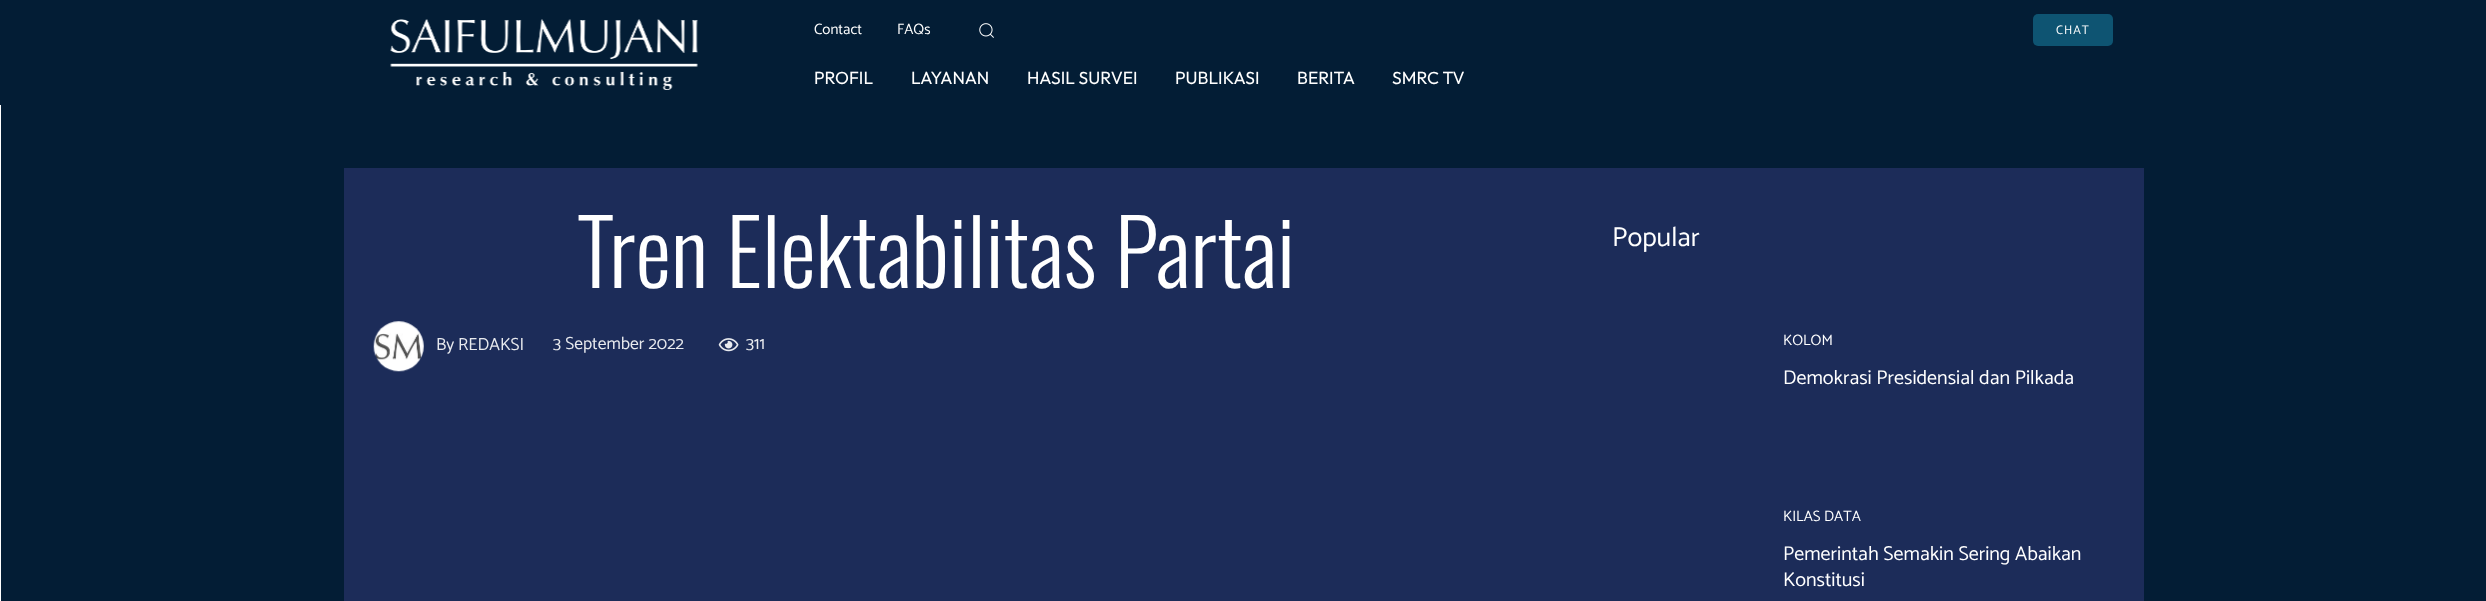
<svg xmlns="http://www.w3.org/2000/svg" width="2486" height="601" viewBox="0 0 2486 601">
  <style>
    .t1 { font: 15px Catamaran; fill: #fff; }
    .t2 { font: 12.5px Catamaran; letter-spacing: 1px; fill: #fff; }
    .t3 { font: 17.5px Outfit; fill: #fff; }
    .t4 { font: 300 90px Oswald; fill: #fff; }
    .t5 { font: 17.5px Catamaran; fill: #e8eaee; }
    .t6 { font: 27.5px Catamaran; fill: #fff; }
    .t7 { font: 20px Catamaran; fill: #fff; }
  </style>
  <rect width="100%" height="100%" fill="#fff"/>
  <rect x="0" y="0" width="2486" height="105" fill="#031d35"/>
  <image x="390" y="19" width="308" height="71" href="images/1.png"/>
  <text x="814" y="34" class="t1">Contact</text>
  <text x="897" y="34" class="t1">FAQs</text>
  <image x="979" y="23" width="15" height="15" href="images/2.png"/>
  <rect x="2033" y="14" width="80" height="32" rx="5" fill="#0e5472"/>
  <text x="2056" y="34" class="t2">CHAT</text>
  <text x="814" y="84" class="t3">PROFIL</text>
  <text x="911" y="84" class="t3">LAYANAN</text>
  <text x="1027" y="84" class="t3">HASIL SURVEI</text>
  <text x="1175" y="84" class="t3">PUBLIKASI</text>
  <text x="1297" y="84" class="t3">BERITA</text>
  <text x="1392" y="84" class="t3">SMRC TV</text>
  <rect x="1" y="105" width="2485" height="496" fill="#031d35"/>
  <rect x="344" y="168" width="1800" height="433" fill="#1c2c59"/>
  <text x="577" y="288" class="t4">Tren Elektabilitas Partai</text>
  <image x="373" y="321" width="51" height="51" href="images/3.png"/>
  <text x="436" y="350" class="t5">By</text>
  <text x="458" y="350" class="t5">REDAKSI</text>
  <text x="553" y="349" class="t5">3 September 2022</text>
  <image x="718" y="338" width="21" height="14" href="images/4.png"/>
  <text x="746" y="349" class="t5">311</text>
  <text x="1612" y="246" class="t6">Popular</text>
  <text x="1783" y="345" class="t1">KOLOM</text>
  <text x="1783" y="384" class="t7">Demokrasi Presidensial dan Pilkada</text>
  <text x="1783" y="521" class="t1">KILAS DATA</text>
  <text x="1783" y="560" class="t7">Pemerintah Semakin Sering Abaikan</text>
  <text x="1783" y="586" class="t7">Konstitusi</text>
</svg>
